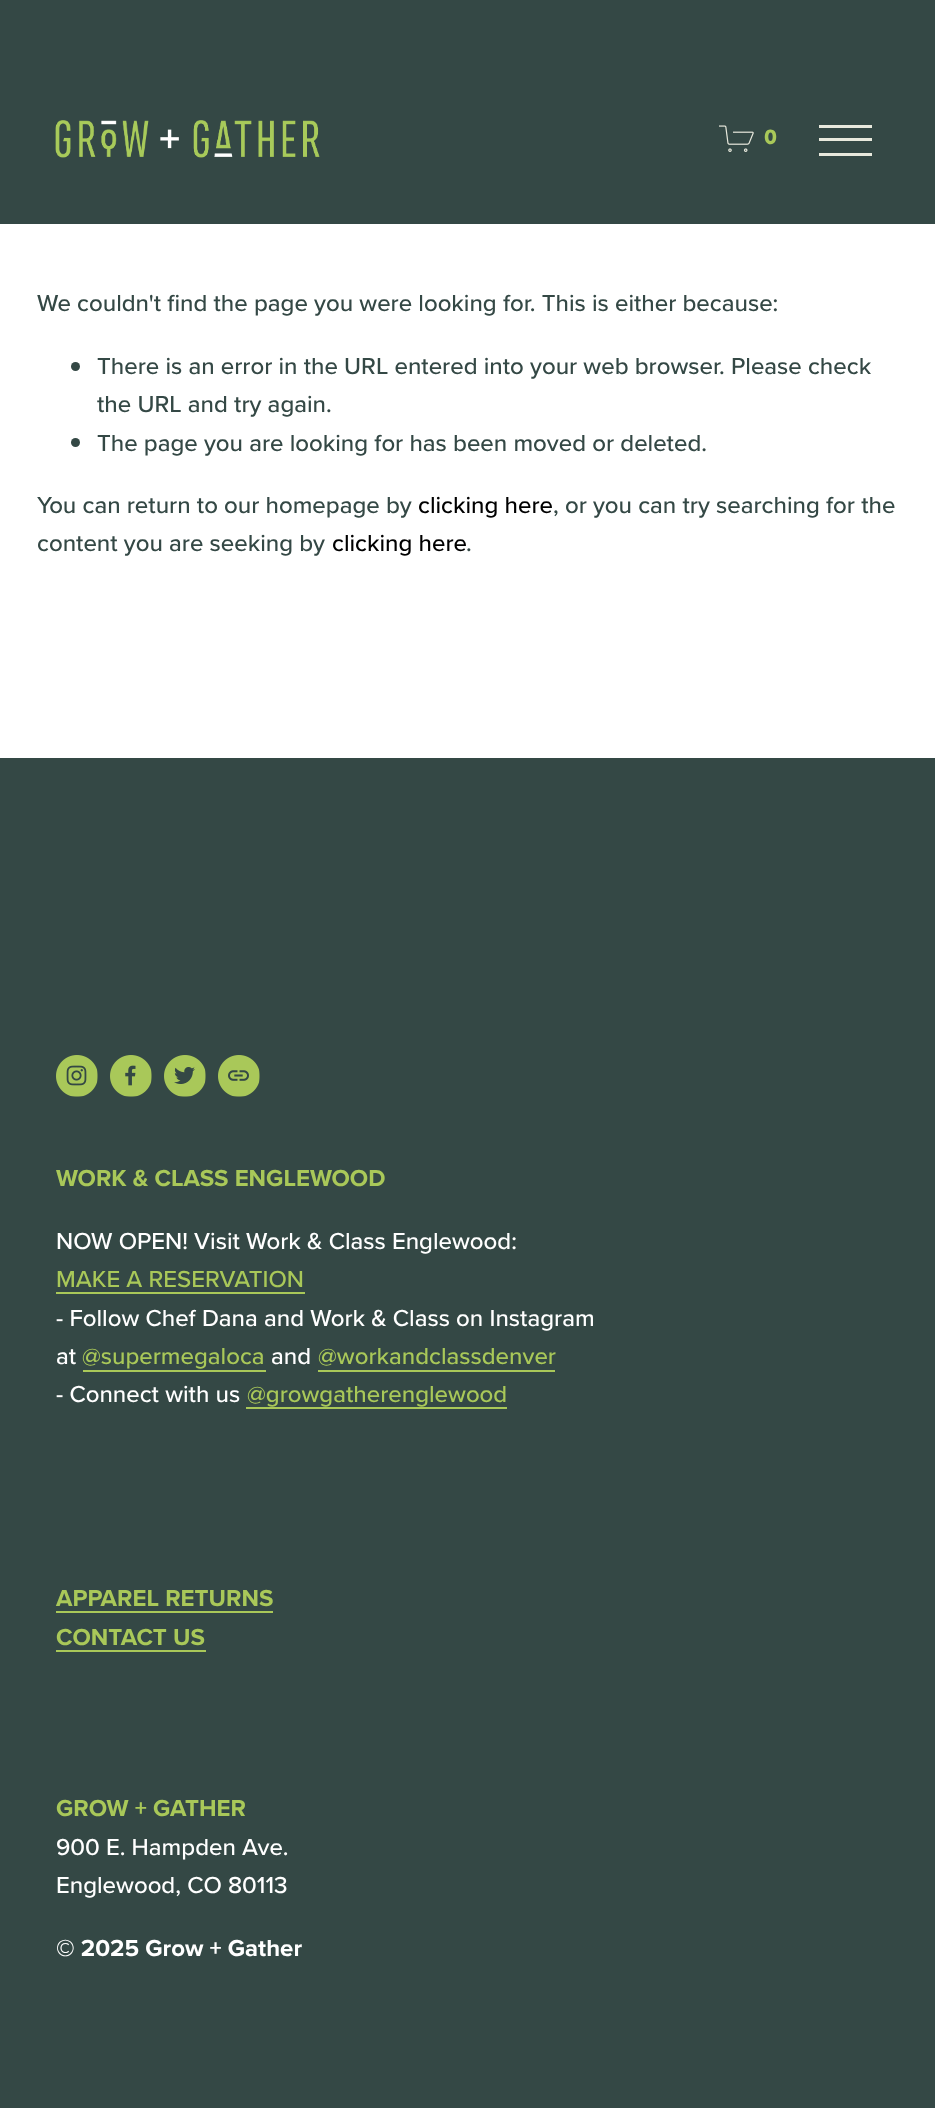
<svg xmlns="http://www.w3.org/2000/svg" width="935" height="2108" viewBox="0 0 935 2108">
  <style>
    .t1 { font: 800 21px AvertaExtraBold; letter-spacing: 2px; fill: #a9c859; }
    .t2 { font: 500 24px Proxima Nova; fill: #344845; }
    .t3 { font: 500 24px Proxima Nova; fill: #000; }
    .t4 { font: bold 24px Proxima Nova; fill: #a9c859; }
    .t5 { font: 500 24px Proxima Nova; fill: #fff; }
    .t6 { font: 500 24px Proxima Nova; fill: #a9c859; }
    .t7 { font: bold 24px Proxima Nova; fill: #fff; }
  </style>
  <rect width="100%" height="100%" fill="#fff"/>
  <rect x="0" y="0" width="935" height="224" fill="#344845"/>
  <image x="55" y="120" width="265" height="38" href="images/1.png"/>
  <image x="719" y="125" width="35" height="27" href="images/2.png"/>
  <text x="764" y="144" class="t1">0</text>
  <rect x="819" y="125" width="53" height="3" fill="#e8e9dd"/>
  <rect x="819" y="138" width="53" height="3" fill="#e8e9dd"/>
  <rect x="819" y="153" width="53" height="3" fill="#e8e9dd"/>
  <text x="37" y="311" class="t2">We couldn't find the page you were looking for. This is either because:</text>
  <circle cx="75.5" cy="366.5" r="4.5" fill="#344845"/>
  <text x="97" y="374" class="t2">There is an error in the URL entered into your web browser. Please check</text>
  <text x="97" y="412" class="t2">the URL and try again.</text>
  <circle cx="75.5" cy="442.5" r="4.5" fill="#344845"/>
  <text x="97" y="451" class="t2">The page you are looking for has been moved or deleted.</text>
  <text x="37" y="513" class="t2">You can return to our homepage by</text>
  <text x="418" y="513" class="t3">clicking here</text>
  <text x="553" y="513" class="t2">, or you can try searching for the</text>
  <text x="37" y="551" class="t2">content you are seeking by</text>
  <text x="332" y="551" class="t3">clicking here</text>
  <text x="466" y="551" class="t2">.</text>
  <rect x="0" y="758" width="935" height="1350" fill="#344845"/>
  <image x="56" y="1055" width="42" height="42" href="images/3.png"/>
  <image x="110" y="1055" width="42" height="42" href="images/4.png"/>
  <image x="164" y="1055" width="42" height="42" href="images/5.png"/>
  <image x="218" y="1055" width="42" height="42" href="images/6.png"/>
  <text x="56" y="1186" class="t4">WORK &amp; CLASS ENGLEWOOD</text>
  <text x="56" y="1249" class="t5">NOW OPEN! Visit Work &amp; Class Englewood:</text>
  <text x="56" y="1287" class="t6">MAKE A RESERVATION</text>
  <rect x="56" y="1292" width="249" height="2" fill="#a9c859"/>
  <text x="56" y="1326" class="t5">- Follow Chef Dana and Work &amp; Class on Instagram</text>
  <text x="56" y="1364" class="t5">at</text>
  <text x="82" y="1364" class="t6">@supermegaloca</text>
  <rect x="83" y="1370" width="183" height="2" fill="#a9c859"/>
  <text x="271" y="1364" class="t5">and</text>
  <text x="318" y="1364" class="t6">@workandclassdenver</text>
  <rect x="318" y="1370" width="237" height="2" fill="#a9c859"/>
  <text x="56" y="1402" class="t5">- Connect with us</text>
  <text x="247" y="1402" class="t6">@growgatherenglewood</text>
  <rect x="246" y="1407" width="261" height="2" fill="#a9c859"/>
  <text x="56" y="1606" class="t4">APPAREL RETURNS</text>
  <rect x="56" y="1611" width="217" height="2" fill="#a9c859"/>
  <text x="56" y="1645" class="t4">CONTACT US</text>
  <rect x="56" y="1650" width="150" height="2" fill="#a9c859"/>
  <text x="56" y="1816" class="t4">GROW + GATHER</text>
  <text x="56" y="1855" class="t5">900 E. Hampden Ave.</text>
  <text x="56" y="1893" class="t5">Englewood, CO 80113</text>
  <text x="56" y="1956" class="t7">© 2025 Grow + Gather</text>
</svg>
